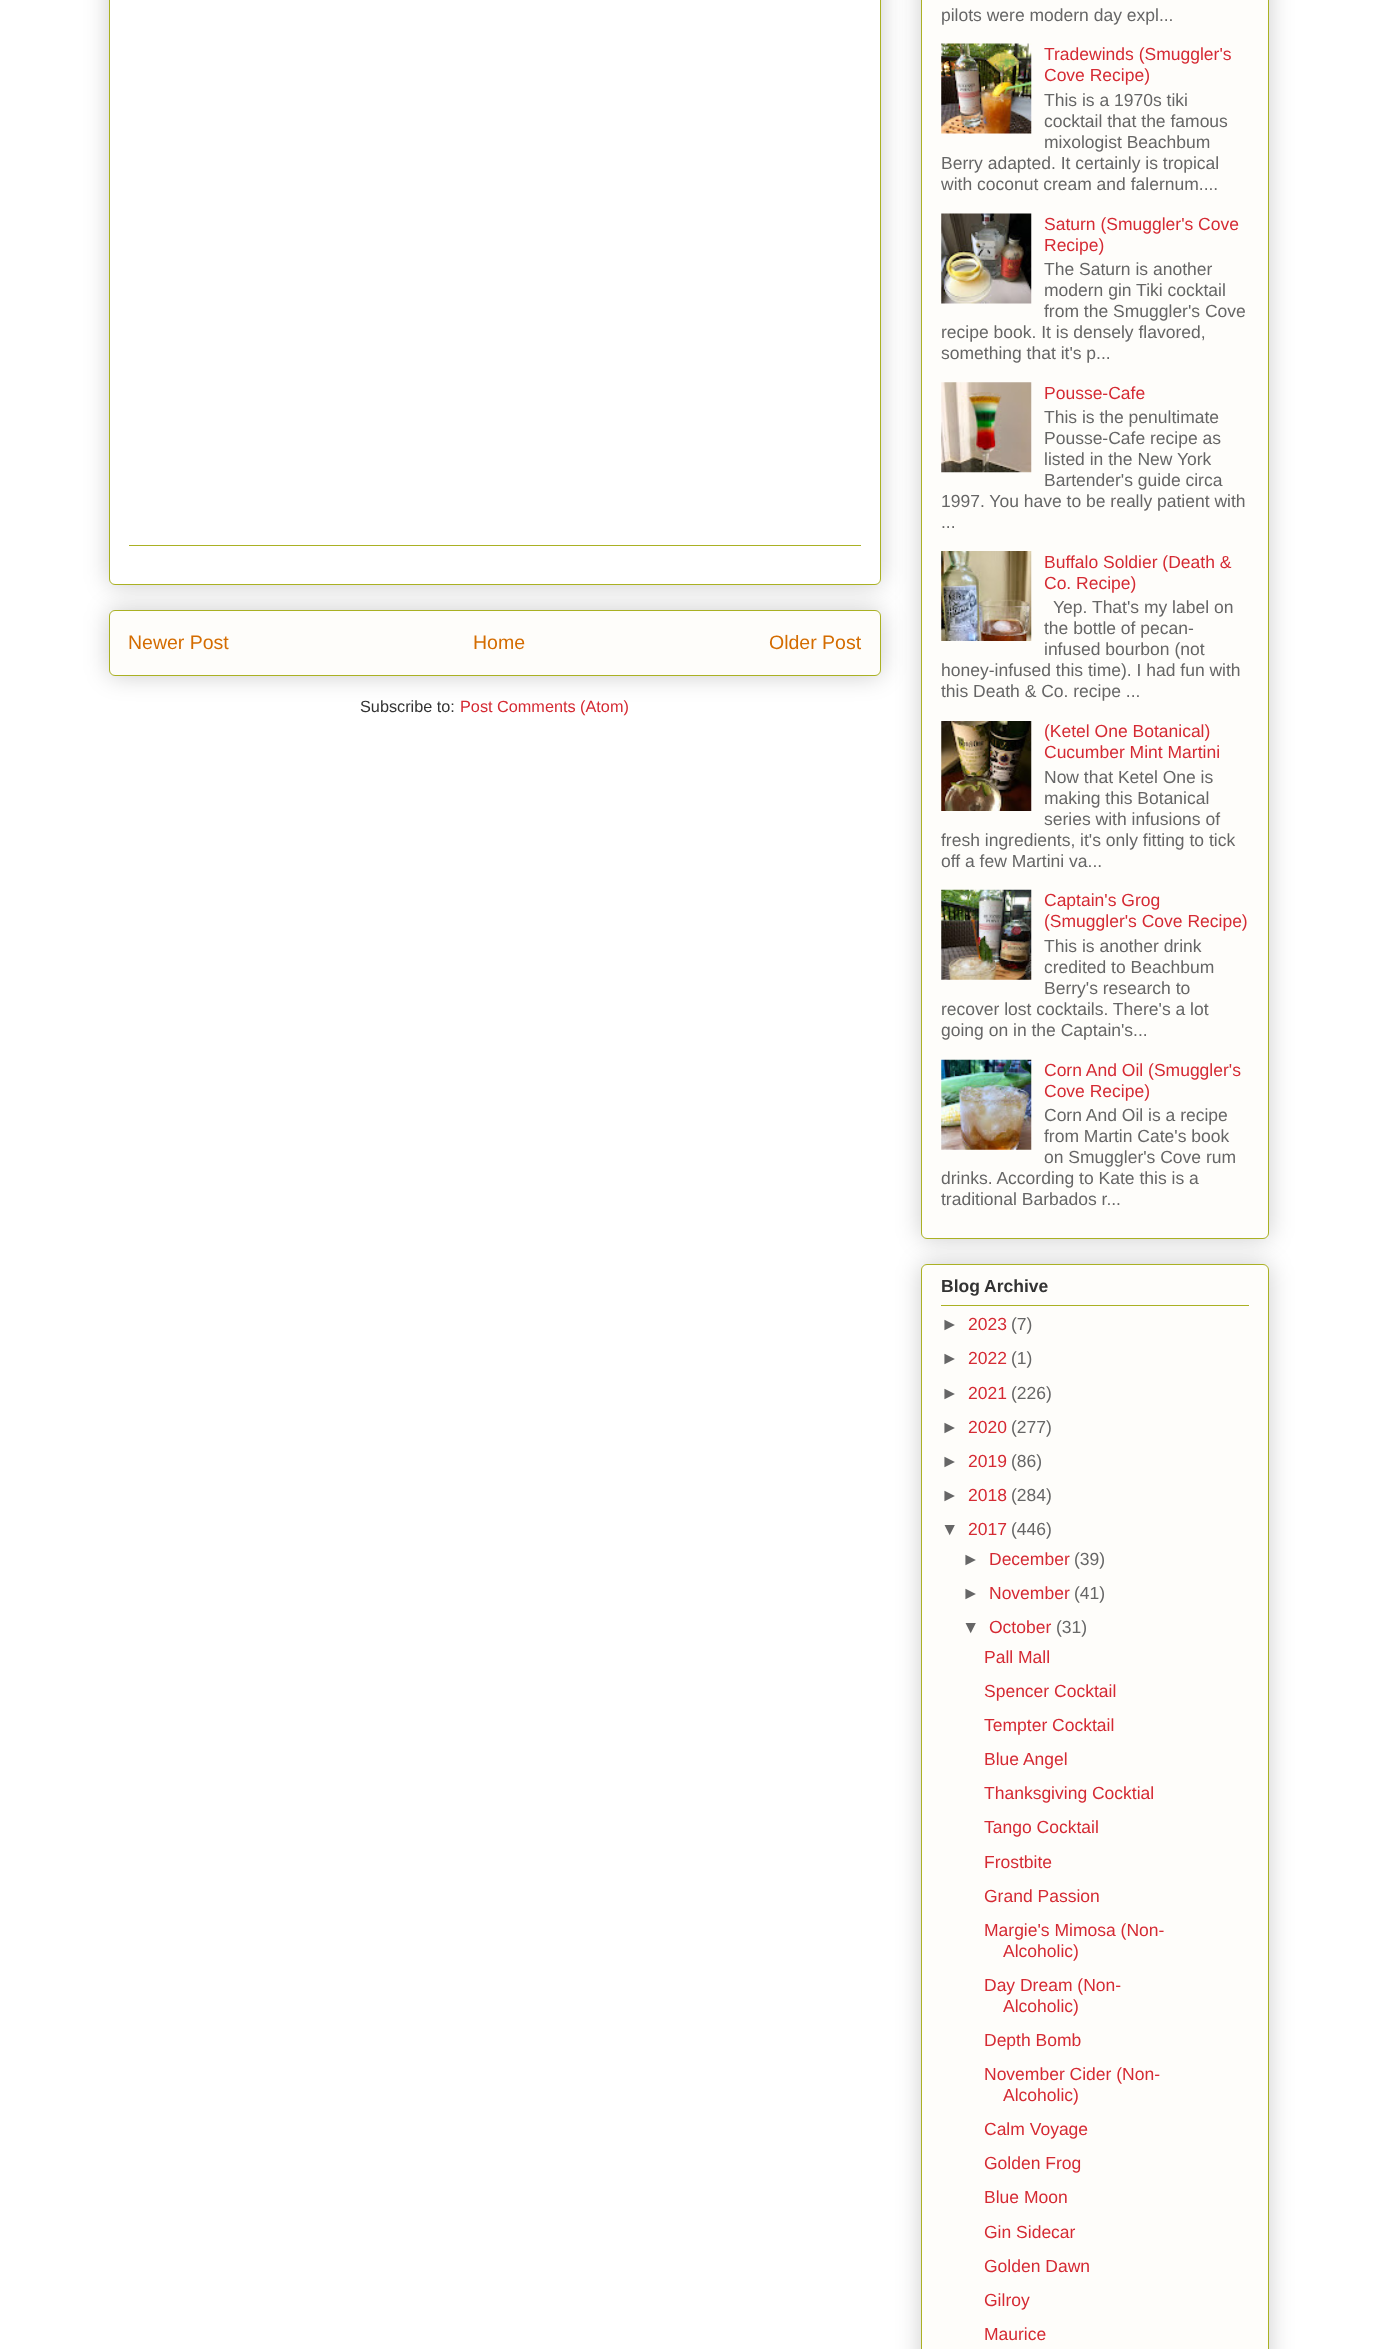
<svg xmlns="http://www.w3.org/2000/svg" width="1376" height="2349" viewBox="0 0 1376 2349">
  <style>
    .t1 { font: 19.5px Liberation Sans; fill: #d46c00; }
    .t2 { font: 16.25px Liberation Sans; fill: #333; }
    .t3 { font: 16.25px Liberation Sans; fill: #d52a33; }
    .t4 { font: 17.5px Liberation Sans; fill: #666; }
    .t5 { font: 17.5px Liberation Sans; fill: #d52a33; }
    .t6 { font: bold 17.5px Liberation Sans; fill: #333; }
  </style>
  <rect width="100%" height="100%" fill="#fff"/>
  <rect x="109" y="610" width="772" height="66" rx="6" fill="#00000033" filter="blur(12.5px)"/>
  <rect x="109.5" y="610.5" width="771" height="65" rx="5.5" fill="#fefdfa" stroke="#aab123"/>
  <rect x="109" y="-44" width="772" height="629" rx="6" fill="#00000033" filter="blur(12.5px)"/>
  <rect x="109.5" y="-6.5" width="771" height="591" rx="5.5" fill="#fff" stroke="#aab123"/>
  <rect x="129" y="545" width="732" height="1" fill="#aab123"/>
  <text x="128" y="649" class="t1">Newer Post</text>
  <text x="473" y="649" class="t1">Home</text>
  <text x="769" y="649" class="t1">Older Post</text>
  <text x="360" y="712" class="t2">Subscribe to:</text>
  <text x="460" y="712" class="t3">Post Comments (Atom)</text>
  <rect x="921" y="-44" width="348" height="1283" rx="6" fill="#00000033" filter="blur(12.5px)"/>
  <rect x="921.5" y="-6.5" width="347" height="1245" rx="5.5" fill="#fefdfa" stroke="#aab123"/>
  <text x="941" y="21" class="t4">pilots were modern day expl...</text>
  <image x="941" y="43" width="91" height="91" href="images/1.png"/>
  <text x="1044" y="60" class="t5">Tradewinds (Smuggler's</text>
  <text x="1044" y="81" class="t5">Cove Recipe)</text>
  <text x="1044" y="106" class="t4">This is a 1970s tiki</text>
  <text x="1044" y="127" class="t4">cocktail that the famous</text>
  <text x="1044" y="148" class="t4">mixologist Beachbum</text>
  <text x="941" y="169" class="t4">Berry adapted. It certainly is tropical</text>
  <text x="941" y="190" class="t4">with coconut cream and falernum....</text>
  <image x="941" y="213" width="91" height="91" href="images/2.png"/>
  <text x="1044" y="230" class="t5">Saturn (Smuggler's Cove</text>
  <text x="1044" y="251" class="t5">Recipe)</text>
  <text x="1044" y="275" class="t4">The Saturn is another</text>
  <text x="1044" y="296" class="t4">modern gin Tiki cocktail</text>
  <text x="1044" y="317" class="t4">from the Smuggler's Cove</text>
  <text x="941" y="338" class="t4">recipe book. It is densely flavored,</text>
  <text x="941" y="359" class="t4">something that it's p...</text>
  <image x="941" y="382" width="91" height="91" href="images/3.png"/>
  <text x="1044" y="399" class="t5">Pousse-Cafe</text>
  <text x="1044" y="423" class="t4">This is the penultimate</text>
  <text x="1044" y="444" class="t4">Pousse-Cafe recipe as</text>
  <text x="1044" y="465" class="t4">listed in the New York</text>
  <text x="1044" y="486" class="t4">Bartender's guide circa</text>
  <text x="941" y="507" class="t4">1997. You have to be really patient with</text>
  <text x="941" y="528" class="t4">...</text>
  <image x="941" y="551" width="91" height="90" href="images/4.png"/>
  <text x="1044" y="568" class="t5">Buffalo Soldier (Death &amp;</text>
  <text x="1044" y="589" class="t5">Co. Recipe)</text>
  <text x="1053" y="613" class="t4">Yep. That's my label on</text>
  <text x="1044" y="634" class="t4">the bottle of pecan-</text>
  <text x="1044" y="655" class="t4">infused bourbon (not</text>
  <text x="941" y="676" class="t4">honey-infused this time). I had fun with</text>
  <text x="941" y="697" class="t4">this Death &amp; Co. recipe ...</text>
  <image x="941" y="721" width="91" height="90" href="images/5.png"/>
  <text x="1044" y="737" class="t5">(Ketel One Botanical)</text>
  <text x="1044" y="758" class="t5">Cucumber Mint Martini</text>
  <text x="1044" y="783" class="t4">Now that Ketel One is</text>
  <text x="1044" y="804" class="t4">making this Botanical</text>
  <text x="1044" y="825" class="t4">series with infusions of</text>
  <text x="941" y="846" class="t4">fresh ingredients, it's only fitting to tick</text>
  <text x="941" y="867" class="t4">off a few Martini va...</text>
  <image x="941" y="889" width="91" height="91" href="images/6.png"/>
  <text x="1044" y="906" class="t5">Captain's Grog</text>
  <text x="1044" y="927" class="t5">(Smuggler's Cove Recipe)</text>
  <text x="1044" y="952" class="t4">This is another drink</text>
  <text x="1044" y="973" class="t4">credited to Beachbum</text>
  <text x="1044" y="994" class="t4">Berry's research to</text>
  <text x="941" y="1015" class="t4">recover lost cocktails. There's a lot</text>
  <text x="941" y="1036" class="t4">going on in the Captain's...</text>
  <image x="941" y="1059" width="91" height="91" href="images/7.png"/>
  <text x="1044" y="1076" class="t5">Corn And Oil (Smuggler's</text>
  <text x="1044" y="1097" class="t5">Cove Recipe)</text>
  <text x="1044" y="1121" class="t4">Corn And Oil is a recipe</text>
  <text x="1044" y="1142" class="t4">from Martin Cate's book</text>
  <text x="1044" y="1163" class="t4">on Smuggler's Cove rum</text>
  <text x="941" y="1184" class="t4">drinks. According to Kate this is a</text>
  <text x="941" y="1205" class="t4">traditional Barbados r...</text>
  <rect x="921" y="1264" width="348" height="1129" rx="6" fill="#00000033" filter="blur(12.5px)"/>
  <rect x="921.5" y="1264.5" width="347" height="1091" rx="5.5" fill="#fefdfa" stroke="#aab123"/>
  <text x="941" y="1292" class="t6">Blog Archive</text>
  <rect x="941" y="1305" width="308" height="1" fill="#aab123"/>
  <text x="941" y="1330" class="t4">►</text>
  <text x="968" y="1330" class="t5">2023</text>
  <text x="1011" y="1330" class="t4">(7)</text>
  <text x="941" y="1364" class="t4">►</text>
  <text x="968" y="1364" class="t5">2022</text>
  <text x="1011" y="1364" class="t4">(1)</text>
  <text x="941" y="1399" class="t4">►</text>
  <text x="968" y="1399" class="t5">2021</text>
  <text x="1011" y="1399" class="t4">(226)</text>
  <text x="941" y="1433" class="t4">►</text>
  <text x="968" y="1433" class="t5">2020</text>
  <text x="1011" y="1433" class="t4">(277)</text>
  <text x="941" y="1467" class="t4">►</text>
  <text x="968" y="1467" class="t5">2019</text>
  <text x="1011" y="1467" class="t4">(86)</text>
  <text x="941" y="1501" class="t4">►</text>
  <text x="968" y="1501" class="t5">2018</text>
  <text x="1011" y="1501" class="t4">(284)</text>
  <text x="941" y="1535" class="t4">▼</text>
  <text x="968" y="1535" class="t5">2017</text>
  <text x="1011" y="1535" class="t4">(446)</text>
  <text x="962" y="1565" class="t4">►</text>
  <text x="989" y="1565" class="t5">December</text>
  <text x="1074" y="1565" class="t4">(39)</text>
  <text x="962" y="1599" class="t4">►</text>
  <text x="989" y="1599" class="t5">November</text>
  <text x="1074" y="1599" class="t4">(41)</text>
  <text x="962" y="1633" class="t4">▼</text>
  <text x="989" y="1633" class="t5">October</text>
  <text x="1056" y="1633" class="t4">(31)</text>
  <text x="984" y="1663" class="t5">Pall Mall</text>
  <text x="984" y="1697" class="t5">Spencer Cocktail</text>
  <text x="984" y="1731" class="t5">Tempter Cocktail</text>
  <text x="984" y="1765" class="t5">Blue Angel</text>
  <text x="984" y="1799" class="t5">Thanksgiving Cocktial</text>
  <text x="984" y="1833" class="t5">Tango Cocktail</text>
  <text x="984" y="1868" class="t5">Frostbite</text>
  <text x="984" y="1902" class="t5">Grand Passion</text>
  <text x="984" y="1936" class="t5">Margie's Mimosa (Non-</text>
  <text x="1003" y="1957" class="t5">Alcoholic)</text>
  <text x="984" y="1991" class="t5">Day Dream (Non-</text>
  <text x="1003" y="2012" class="t5">Alcoholic)</text>
  <text x="984" y="2046" class="t5">Depth Bomb</text>
  <text x="984" y="2080" class="t5">November Cider (Non-</text>
  <text x="1003" y="2101" class="t5">Alcoholic)</text>
  <text x="984" y="2135" class="t5">Calm Voyage</text>
  <text x="984" y="2169" class="t5">Golden Frog</text>
  <text x="984" y="2203" class="t5">Blue Moon</text>
  <text x="984" y="2238" class="t5">Gin Sidecar</text>
  <text x="984" y="2272" class="t5">Golden Dawn</text>
  <text x="984" y="2306" class="t5">Gilroy</text>
  <text x="984" y="2340" class="t5">Maurice</text>
</svg>
